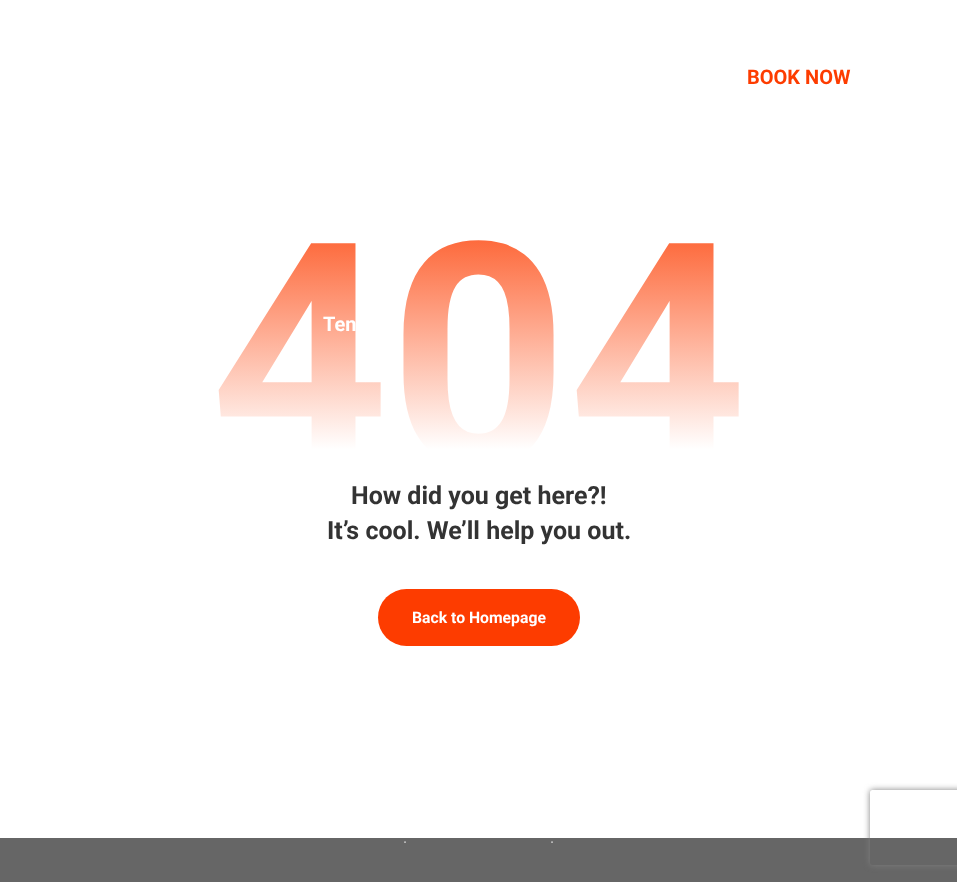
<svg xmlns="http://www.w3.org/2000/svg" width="957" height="882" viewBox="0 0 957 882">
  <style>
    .t1 { font: bold 20px Roboto; fill: #fd3c00; }
    .t2 { font: bold 312px Roboto; fill: url(#g1); }
    .t3 { font: bold 20px Roboto; fill: #fff; }
    .t4 { font: bold 25px Roboto; fill: #333; }
    .t5 { font: bold 15.75px Roboto; fill: #fff; }
    .t6 { font: 16px Roboto; fill: #c9c9c9; }
  </style>
  <defs>
    <linearGradient id="g1" gradientUnits="userSpaceOnUse" x1="479" y1="175" x2="479" y2="541"><stop offset="0" stop-color="#fd3c00"/><stop offset="0.75" stop-color="#fff"/></linearGradient>
    <clipPath id="clip1"><path d="M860 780H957V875H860ZM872.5 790H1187.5C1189 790 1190 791 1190 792.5V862.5C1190 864 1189 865 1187.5 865H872.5C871 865 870 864 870 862.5V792.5C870 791 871 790 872.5 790Z" clip-rule="evenodd"/></clipPath>
  </defs>
  <rect width="100%" height="100%" fill="#666"/>
  <rect x="0" y="0" width="957" height="838" fill="#fff"/>
  <rect x="219" y="388" width="520" height="1" fill="#ffffff24"/>
  <text x="747" y="84" class="t1">BOOK NOW</text>
  <text x="210" y="465" class="t2">404</text>
  <text x="323" y="331" class="t3">Ten</text>
  <text x="351" y="504" class="t4">How did you get here?!</text>
  <text x="327" y="539" class="t4">It’s cool. We’ll help you out.</text>
  <rect x="378" y="589" width="202" height="57" rx="28.5" fill="#fd3c00"/>
  <text x="412" y="623" class="t5">Back to Homepage</text>
  <text x="403" y="843" class="t6">.</text>
  <text x="550" y="843" class="t6">.</text>
  <g clip-path="url(#clip1)">
    <rect x="870" y="790" width="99" height="75" rx="2.5" fill="#808080" filter="blur(3px)"/>
  </g>
</svg>
